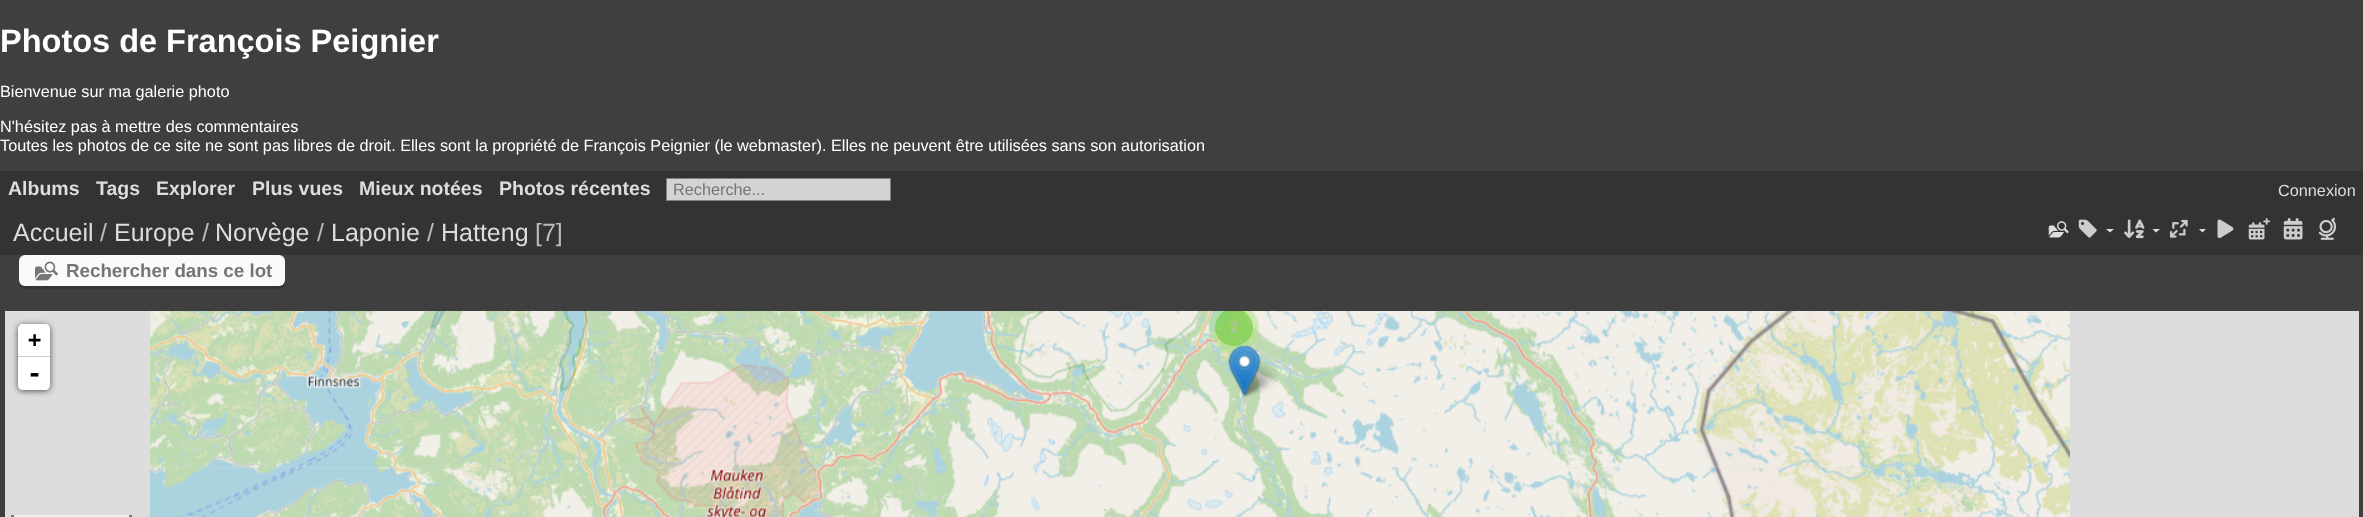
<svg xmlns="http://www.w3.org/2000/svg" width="2363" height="517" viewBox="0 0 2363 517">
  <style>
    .t1 { font: bold 32.5px Liberation Sans; fill: #fff; }
    .t2 { font: 16.25px Liberation Sans; fill: #fff; }
    .t3 { font: bold 19.5px Liberation Sans; fill: #ddd; }
    .t4 { font: 16.25px Liberation Sans; fill: #757575; }
    .t5 { font: 16.25px Liberation Sans; fill: #ddd; }
    .t6 { font: 25px Liberation Sans; fill: #ddd; }
    .t7 { font: 25px Liberation Sans; fill: #bbb; }
    .t8 { font: bold 18.75px Liberation Sans; fill: #757575; }
    .t9 { font: 15px Liberation Sans; fill: #bbb; }
    .t10 { font: bold 22px DejaVu Sans Mono; fill: #000; }
    .t11 { font: bold 25px DejaVu Sans Mono; fill: #000; }
  </style>
  <defs>
    <clipPath id="clip1"><rect x="5" y="311" width="2354" height="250"/></clipPath>
  </defs>
  <rect width="100%" height="100%" fill="#3f3f3f"/>
  <text x="0" y="52" class="t1">Photos de François Peignier</text>
  <text x="0" y="97" class="t2">Bienvenue sur ma galerie photo</text>
  <text x="0" y="132" class="t2">N'hésitez pas à mettre des commentaires</text>
  <text x="0" y="151" class="t2">Toutes les photos de ce site ne sont pas libres de droit. Elles sont la propriété de François Peignier (le webmaster). Elles ne peuvent être utilisées sans son autorisation</text>
  <rect x="0" y="171" width="2363" height="84" fill="#333"/>
  <text x="8" y="195" class="t3">Albums</text>
  <text x="96" y="195" class="t3">Tags</text>
  <text x="156" y="195" class="t3">Explorer</text>
  <text x="252" y="195" class="t3">Plus vues</text>
  <text x="359" y="195" class="t3">Mieux notées</text>
  <text x="499" y="195" class="t3">Photos récentes</text>
  <rect x="666.5" y="178.5" width="224" height="22" fill="#d3d3d3" stroke="#808080"/>
  <text x="673" y="195" class="t4">Recherche...</text>
  <text x="2278" y="196" class="t5">Connexion</text>
  <text x="13" y="241" class="t6">Accueil</text>
  <text x="100" y="241" class="t7">/</text>
  <text x="114" y="241" class="t6">Europe</text>
  <text x="202" y="241" class="t7">/</text>
  <text x="215" y="241" class="t6">Norvège</text>
  <text x="317" y="241" class="t7">/</text>
  <text x="331" y="241" class="t6">Laponie</text>
  <text x="427" y="241" class="t7">/</text>
  <text x="441" y="241" class="t6">Hatteng</text>
  <text x="535" y="241" class="t7">[7]</text>
  <image x="2078" y="219" width="19" height="19" href="images/1.png"/>
  <path d="M2106 229H2114L2110 232.5ZM2152.5 229H2160L2156 232.5Z" fill="#ddd"/>
  <image x="2248" y="218" width="22" height="22" href="images/2.png"/>
  <image x="2283" y="218" width="20" height="22" href="images/3.png"/>
  <image x="2318" y="217" width="19" height="23" href="images/4.png"/>
  <image x="2048" y="221" width="21" height="17" href="images/5.png"/>
  <image x="2124" y="219" width="21" height="20" href="images/6.png"/>
  <image x="2170" y="219" width="18" height="19" href="images/7.png"/>
  <path d="M2199 229H2206L2202.5 232.5Z" fill="#ddd"/>
  <image x="2217" y="219" width="17" height="20" href="images/8.png"/>
  <path d="M19 282V283C19 286 22 289 25 289H279C282 289 285 286 285 283V280C285 283 282 286 279 286H25C22 286 20 284 19 282Z" fill="#363636"/>
  <rect x="19" y="255" width="266" height="31" rx="6" fill="#fafafa"/>
  <image x="35" y="261" width="23" height="20" href="images/9.png"/>
  <text x="66" y="277" class="t8">Rechercher dans ce lot</text>
  <rect x="5" y="311" width="2354" height="206" fill="#ddd"/>
  <image x="150" y="311" width="320" height="157" href="images/10.png"/>
  <image x="470" y="311" width="320" height="157" href="images/11.png"/>
  <image x="790" y="311" width="320" height="157" href="images/12.png"/>
  <image x="1110" y="311" width="320" height="157" href="images/13.png"/>
  <image x="1430" y="311" width="320" height="157" href="images/14.png"/>
  <image x="1750" y="311" width="320" height="157" href="images/15.png"/>
  <image x="150" y="467" width="320" height="50" href="images/16.png"/>
  <image x="470" y="467" width="320" height="50" href="images/17.png"/>
  <image x="790" y="467" width="320" height="50" href="images/18.png"/>
  <image x="1110" y="467" width="320" height="50" href="images/19.png"/>
  <image x="1430" y="467" width="320" height="50" href="images/20.png"/>
  <image x="1750" y="467" width="320" height="50" href="images/21.png"/>
  <g clip-path="url(#clip1)">
    <circle cx="1234" cy="328" r="25" fill="#b5e28c99"/>
    <rect x="1215" y="309" width="38" height="37" rx="18.5" fill="#6ecc3999"/>
  </g>
  <text x="1230" y="332" class="t9">2</text>
  <image x="1240" y="361" width="37" height="36" href="images/23.png"/>
  <image x="1228" y="344" width="33" height="53" href="images/22.png"/>
  <rect x="18" y="325" width="32" height="66" rx="5" fill="#000000a6" filter="blur(3px)"/>
  <path d="M23 324H45C48 324 50 326 50 329V358H18V329C18 326 20 324 23 324Z" fill="#fff"/>
  <rect x="18" y="356" width="32" height="1" fill="#ccc"/>
  <text x="28" y="347" class="t10">+</text>
  <path d="M18 358H50V385C50 388 48 390 45 390H23C20 390 18 388 18 385Z" fill="#fff"/>
  <text x="27" y="382" class="t11">-</text>
  <rect x="11" y="515" width="120" height="2" fill="#eee"/>
  <rect x="129" y="515" width="3" height="2" fill="#777"/>
  <rect x="11" y="515" width="3" height="2" fill="#777"/>
</svg>
